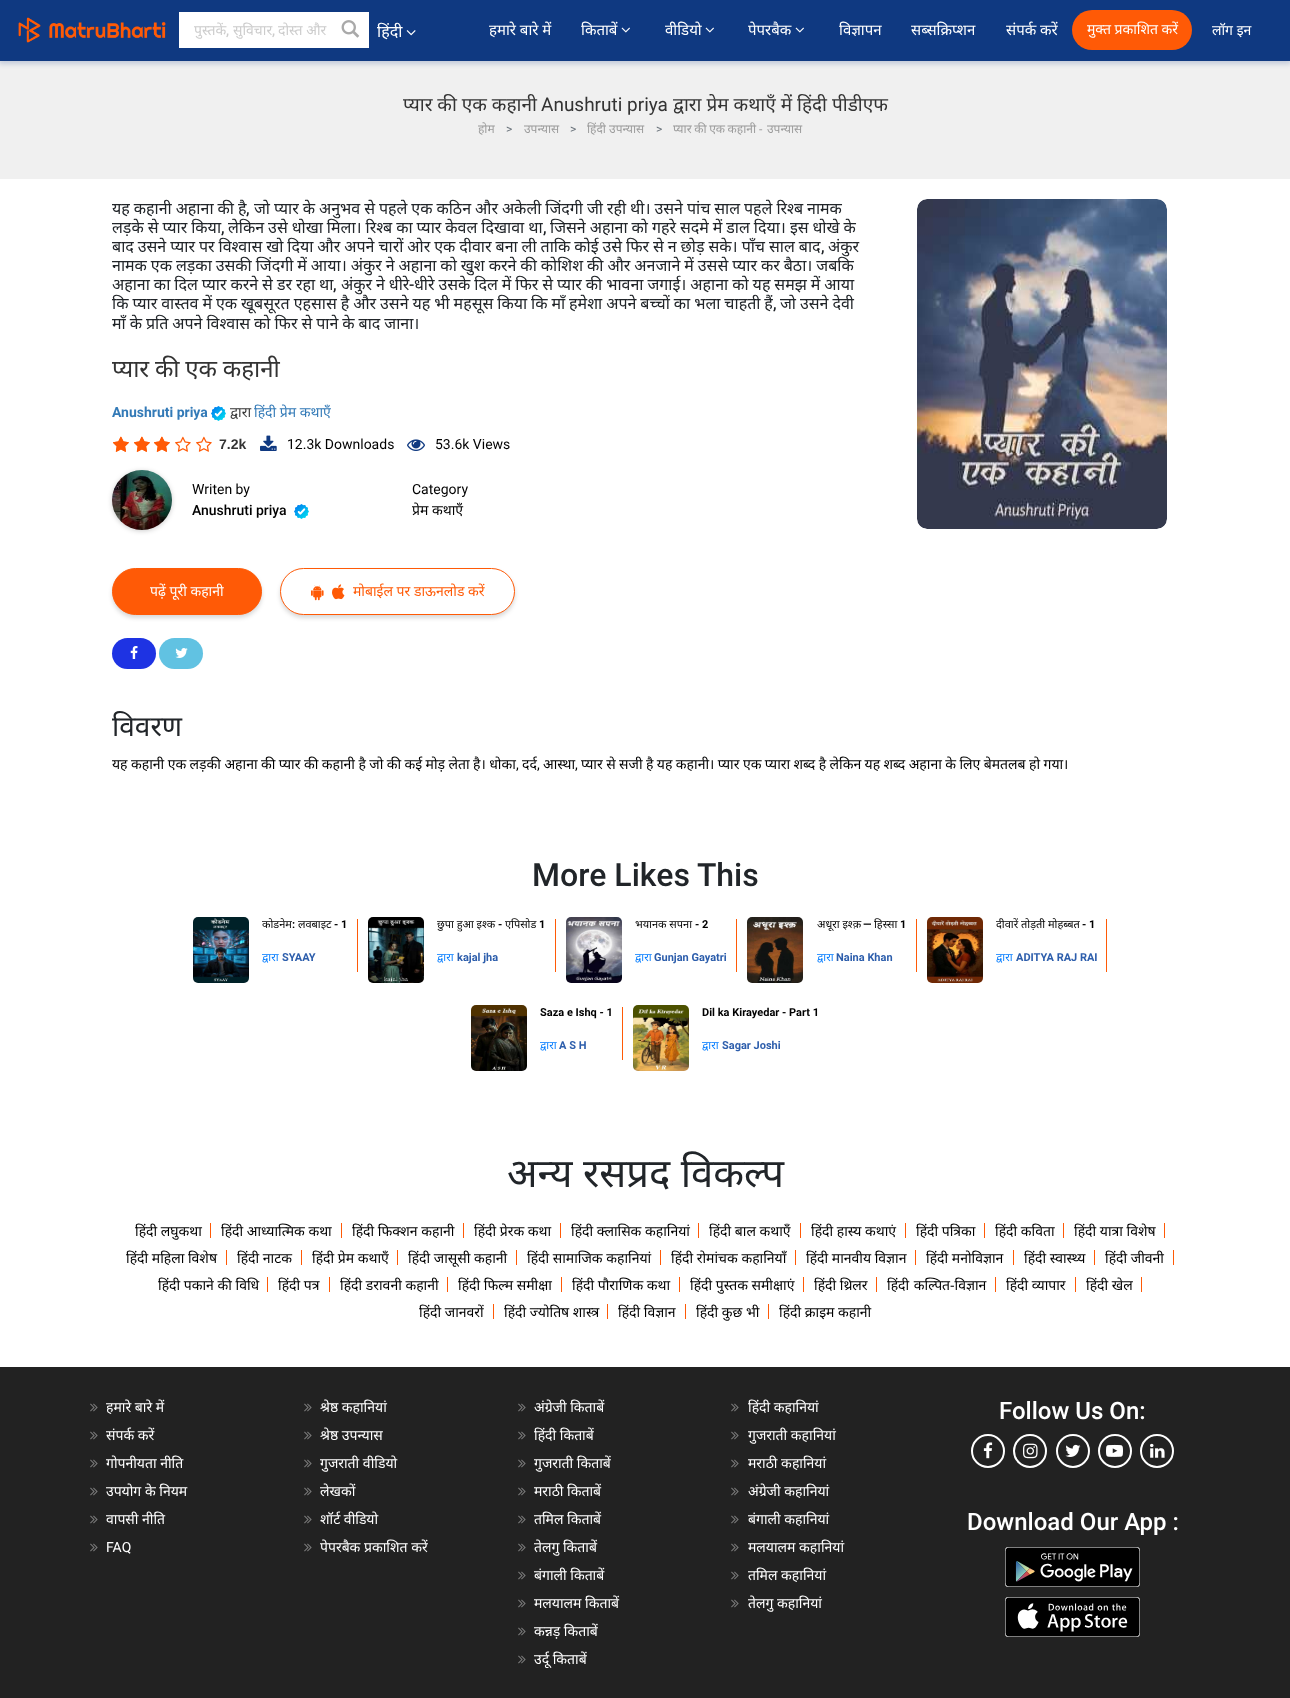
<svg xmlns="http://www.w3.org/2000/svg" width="1290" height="1698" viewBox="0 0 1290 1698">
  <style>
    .t1 { font: 14px Noto Sans; fill: #ccc; }
    .t2 { font: 500 14px Roboto; fill: #ccc; }
    .t3 { font: 16px Noto Sans; fill: #fff; }
    .t4 { font: 15px Noto Sans; fill: #fff; }
    .t5 { font: 14px Noto Sans; fill: #fff; }
    .t6 { font: 19px Noto Sans; fill: #333; }
    .t7 { font: 19px Roboto; fill: #333; }
    .t8 { font: 12px Noto Sans; fill: #9c9c9c; }
    .t9 { font: 12px Roboto; fill: #6c757d; }
    .t10 { font: 16px Noto Sans; fill: #212529; }
    .t11 { font: 500 16px Roboto; fill: #212529; }
    .t12 { font: 24px Noto Sans; fill: #333; }
    .t13 { font: bold 14px Roboto; fill: #337ab7; }
    .t14 { font: 14px Noto Sans; fill: #333; }
    .t15 { font: 14px Noto Sans; fill: #337ab7; }
    .t16 { font: bold 14px Liberation Sans; fill: #333; }
    .t17 { font: 14px Roboto; fill: #000; }
    .t18 { font: 500 14px Roboto; fill: #000; }
    .t19 { font: 14px Noto Sans; fill: #000; }
    .t20 { font: 14px Noto Sans; fill: #ff5a06; }
    .t21 { font: 28px Noto Sans; fill: #212529; }
    .t22 { font: 500 32px Roboto; fill: #212529; }
    .t23 { font: 11px Noto Sans; fill: #000; }
    .t24 { font: bold 11px Roboto; fill: #000; }
    .t25 { font: 11px Noto Sans; fill: #007bff; }
    .t26 { font: bold 11px Roboto; fill: #2d5eac; }
    .t27 { font: 40px Noto Sans; fill: #212529; }
    .t28 { font: 14px Roboto; fill: #fff; }
    .t29 { font: 500 24px Roboto; fill: #fff; }
  </style>
  <defs>
    <clipPath id="clip1"><rect x="191" y="20" width="142" height="19"/></clipPath>
  </defs>
  <rect width="100%" height="100%" fill="#fff"/>
  <rect x="0" y="61" width="1290" height="118" fill="#f0f0f0"/>
  <rect x="-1" y="1" width="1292" height="63" fill="#0f398133" filter="blur(2.5px)"/>
  <rect x="0" y="0" width="1290" height="61" fill="#0f3981"/>
  <image x="18" y="17" width="148" height="26" href="images/1.png"/>
  <rect x="179" y="12" width="190" height="36" fill="#fff"/>
  <g clip-path="url(#clip1)">
    <text x="194" y="35" class="t1">पुस्तकें</text>
  </g>
  <text x="226" y="35" class="t2">,</text>
  <text x="233" y="35" class="t1">सुविचार</text>
  <text x="278" y="35" class="t1">दोस्त और</text>
  <text x="272" y="35" class="t2">,</text>
  <image x="341" y="20" width="19" height="18" href="images/2.png"/>
  <text x="377" y="37" class="t3">हिंदी</text>
  <image x="406" y="30" width="10" height="6" href="images/3.png"/>
  <text x="489" y="35" class="t4">हमारे बारे में</text>
  <text x="581" y="35" class="t4">किताबें</text>
  <image x="621" y="27" width="9" height="6" href="images/4.png"/>
  <text x="665" y="35" class="t4">वीडियो</text>
  <image x="705" y="27" width="9" height="6" href="images/4.png"/>
  <text x="748" y="35" class="t4">पेपरबैक</text>
  <image x="795" y="27" width="9" height="6" href="images/4.png"/>
  <text x="839" y="35" class="t4">विज्ञापन</text>
  <text x="911" y="35" class="t4">सब्सक्रिप्शन</text>
  <text x="1006" y="35" class="t4">संपर्क करें</text>
  <rect x="1072" y="10" width="120" height="40" rx="20" fill="#ff5a06"/>
  <text x="1087" y="34" class="t5">मुक्त प्रकाशित करें</text>
  <text x="1212" y="35" class="t5">लॉग इन</text>
  <text x="403" y="111" class="t6">प्यार की एक कहानी</text>
  <text x="541" y="111" class="t7">Anushruti priya</text>
  <text x="673" y="111" class="t6">द्वारा प्रेम कथाएँ में हिंदी पीडीएफ</text>
  <text x="478" y="133" class="t8">होम</text>
  <text x="506" y="133" class="t9">&gt;</text>
  <text x="524" y="133" class="t8">उपन्यास</text>
  <text x="570" y="133" class="t9">&gt;</text>
  <text x="587" y="133" class="t8">हिंदी उपन्यास</text>
  <text x="656" y="133" class="t9">&gt;</text>
  <text x="673" y="133" word-spacing="-0.5" class="t8">प्यार की एक कहानी -</text>
  <text x="767" y="133" class="t8">उपन्यास</text>
  <text x="112" y="214" word-spacing="-0.2" class="t10">यह कहानी अहाना की है</text>
  <text x="246" y="214" class="t11">,</text>
  <text x="254" y="214" word-spacing="-0.2" class="t10">जो प्यार के अनुभव से पहले एक कठिन और अकेली जिंदगी जी रही थी। उसने पांच साल पहले रिश्ब नामक</text>
  <text x="112" y="233" word-spacing="-0.2" class="t10">लड़के से प्यार किया</text>
  <text x="221" y="233" class="t11">,</text>
  <text x="228" y="233" word-spacing="-0.2" class="t10">लेकिन उसे धोखा मिला। रिश्ब का प्यार केवल दिखावा था</text>
  <text x="550" y="233" word-spacing="-0.2" class="t10">जिसने अहाना को गहरे सदमे में डाल दिया। इस धोखे के</text>
  <text x="543" y="233" class="t11">,</text>
  <text x="112" y="252" word-spacing="-0.2" class="t10">बाद उसने प्यार पर विश्वास खो दिया और अपने चारों ओर एक दीवार बना ली ताकि कोई उसे फिर से न छोड़ सके। पाँच साल बाद</text>
  <text x="821" y="252" class="t11">,</text>
  <text x="828" y="252" class="t10">अंकुर</text>
  <text x="112" y="271" word-spacing="-0.2" class="t10">नामक एक लड़का उसकी जिंदगी में आया। अंकुर ने अहाना को खुश करने की कोशिश की और अनजाने में उससे प्यार कर बैठा। जबकि</text>
  <text x="112" y="290" word-spacing="-0.2" class="t10">अहाना का दिल प्यार करने से डर रहा था</text>
  <text x="341" y="290" word-spacing="-0.2" class="t10">अंकुर ने धीरे</text>
  <text x="409" y="290" class="t11">-</text>
  <text x="414" y="290" word-spacing="-0.2" class="t10">धीरे उसके दिल में फिर से प्यार की भावना जगाई। अहाना को यह समझ में आया</text>
  <text x="333" y="290" class="t11">,</text>
  <text x="112" y="309" word-spacing="-0.2" class="t10">कि प्यार वास्तव में एक खूबसूरत एहसास है और उसने यह भी महसूस किया कि माँ हमेशा अपने बच्चों का भला चाहती हैं</text>
  <text x="773" y="309" class="t11">,</text>
  <text x="780" y="309" word-spacing="-0.2" class="t10">जो उसने देवी</text>
  <text x="112" y="329" word-spacing="-0.2" class="t10">माँ के प्रति अपने विश्वास को फिर से पाने के बाद जाना।</text>
  <text x="112" y="377" word-spacing="-0.5" class="t12">प्यार की एक कहानी</text>
  <text x="112" y="417" class="t13">Anushruti priya</text>
  <image x="211" y="406" width="15" height="15" href="images/5.png"/>
  <text x="230" y="417" class="t14">द्वारा</text>
  <text x="254" y="417" class="t15">हिंदी प्रेम कथाएँ</text>
  <image x="113" y="436" width="16" height="16" href="images/6.png"/>
  <image x="134" y="436" width="16" height="16" href="images/6.png"/>
  <image x="154" y="436" width="16" height="16" href="images/6.png"/>
  <image x="175" y="436" width="16" height="16" href="images/6.png"/>
  <image x="196" y="436" width="16" height="16" href="images/6.png"/>
  <image x="113" y="436" width="16" height="16" href="images/7.png"/>
  <image x="134" y="436" width="16" height="16" href="images/7.png"/>
  <image x="154" y="436" width="16" height="16" href="images/7.png"/>
  <text x="219" y="449" class="t16">7.2k</text>
  <image x="260" y="435" width="17" height="16" href="images/8.png"/>
  <text x="287" y="449" class="t17">12.3k Downloads</text>
  <image x="407" y="439" width="18" height="12" href="images/9.png"/>
  <text x="435" y="449" class="t17">53.6k Views</text>
  <rect x="112" y="471" width="60" height="60" rx="30" fill="#00000033" filter="blur(2.5px)"/>
  <image x="112" y="470" width="60" height="60" href="images/10.png"/>
  <text x="192" y="494" class="t17">Writen by</text>
  <text x="192" y="515" class="t18">Anushruti priya</text>
  <image x="294" y="504" width="15" height="15" href="images/5.png"/>
  <text x="412" y="494" class="t17">Category</text>
  <text x="412" y="515" class="t19">प्रेम कथाएँ</text>
  <rect x="112" y="571" width="150" height="47" rx="23.5" fill="#00000026" filter="blur(2px)"/>
  <rect x="112.5" y="568.5" width="149" height="46" rx="23" fill="#ff5a06" stroke="#ff5a06"/>
  <text x="150" y="596" class="t5">पढ़ें पूरी कहानी</text>
  <rect x="280" y="571" width="235" height="47" rx="23.5" fill="#00000026" filter="blur(2px)"/>
  <rect x="280.5" y="568.5" width="234" height="46" rx="23" fill="#fff" stroke="#ff5a06"/>
  <image x="311" y="585" width="13" height="16" href="images/11.png"/>
  <image x="332" y="584" width="13" height="16" href="images/12.png"/>
  <text x="353" y="596" class="t20">मोबाईल पर डाऊनलोड करें</text>
  <rect x="112" y="638" width="44" height="31" rx="15.5" fill="#1e33e3"/>
  <image x="130" y="646" width="8" height="13" href="images/13.png"/>
  <rect x="159" y="638" width="44" height="31" rx="15.5" fill="#61c2e2"/>
  <image x="175" y="648" width="13" height="10" href="images/14.png"/>
  <image x="917" y="199" width="250" height="330" href="images/15.png"/>
  <text x="112" y="736" class="t21">विवरण</text>
  <text x="112" y="769" word-spacing="-0.2" class="t19">यह कहानी एक लड़की अहाना की प्यार की कहानी है जो की कई मोड़ लेता है। धोका</text>
  <text x="516" y="769" class="t17">,</text>
  <text x="522" y="769" class="t19">दर्द</text>
  <text x="537" y="769" class="t17">,</text>
  <text x="543" y="769" class="t19">आस्था</text>
  <text x="575" y="769" class="t17">,</text>
  <text x="581" y="769" word-spacing="-0.2" class="t19">प्यार से सजी है यह कहानी। प्यार एक प्यारा शब्द है लेकिन यह शब्द अहाना के लिए बेमतलब हो गया।</text>
  <text x="532" y="886" class="t22">More Likes This</text>
  <image x="193" y="917" width="56" height="66" href="images/16.png"/>
  <text x="262" y="928" class="t23">कोडनेम</text>
  <text x="292" y="928" class="t24">:</text>
  <text x="298" y="928" class="t23">लवबाइट</text>
  <text x="334" y="928" class="t24">- 1</text>
  <text x="262" y="961" class="t25">द्वारा</text>
  <text x="282" y="961" class="t26">SYAAY</text>
  <rect x="357" y="919" width="1" height="53" fill="#ff5a06"/>
  <image x="368" y="917" width="56" height="66" href="images/17.png"/>
  <text x="437" y="928" class="t23">छुपा हुआ इश्क</text>
  <text x="498" y="928" class="t24">-</text>
  <text x="505" y="928" class="t23">एपिसोड</text>
  <text x="539" y="928" class="t24">1</text>
  <text x="437" y="961" class="t25">द्वारा</text>
  <text x="457" y="961" class="t26">kajal jha</text>
  <rect x="555" y="919" width="1" height="53" fill="#ff5a06"/>
  <image x="566" y="917" width="56" height="66" href="images/18.png"/>
  <text x="635" y="928" class="t23">भयानक सपना</text>
  <text x="695" y="928" class="t24">- 2</text>
  <text x="635" y="961" class="t25">द्वारा</text>
  <text x="654" y="961" class="t26">Gunjan Gayatri</text>
  <rect x="736" y="919" width="1" height="53" fill="#ff5a06"/>
  <image x="747" y="917" width="56" height="66" href="images/19.png"/>
  <text x="817" y="928" class="t23">अधूरा इश्क़</text>
  <text x="863" y="928" class="t24">—</text>
  <text x="874" y="928" class="t23">हिस्सा</text>
  <text x="900" y="928" class="t24">1</text>
  <text x="817" y="961" class="t25">द्वारा</text>
  <text x="836" y="961" class="t26">Naina Khan</text>
  <rect x="916" y="919" width="1" height="53" fill="#ff5a06"/>
  <image x="927" y="917" width="56" height="66" href="images/20.png"/>
  <text x="996" y="928" class="t23">दीवारें तोड़ती मोहब्बत</text>
  <text x="1082" y="928" class="t24">- 1</text>
  <text x="996" y="961" class="t25">द्वारा</text>
  <text x="1016" y="961" class="t26">ADITYA RAJ RAI</text>
  <rect x="1106" y="919" width="1" height="53" fill="#ff5a06"/>
  <image x="471" y="1005" width="56" height="66" href="images/21.png"/>
  <text x="540" y="1016" class="t24">Saza e Ishq - 1</text>
  <text x="540" y="1049" class="t25">द्वारा</text>
  <text x="559" y="1049" class="t26">A S H</text>
  <rect x="622" y="1007" width="1" height="53" fill="#ff5a06"/>
  <image x="633" y="1005" width="56" height="66" href="images/22.png"/>
  <text x="702" y="1016" class="t24">Dil ka Kirayedar - Part 1</text>
  <text x="702" y="1049" class="t25">द्वारा</text>
  <text x="722" y="1049" class="t26">Sagar Joshi</text>
  <text x="507" y="1187" class="t27">अन्य रसप्रद विकल्प</text>
  <text x="135" y="1236" class="t19">हिंदी लघुकथा</text>
  <rect x="210" y="1223" width="1" height="15" fill="#ff5a06"/>
  <text x="221" y="1236" class="t19">हिंदी आध्यात्मिक कथा</text>
  <rect x="341" y="1223" width="1" height="15" fill="#ff5a06"/>
  <text x="352" y="1236" class="t19">हिंदी फिक्शन कहानी</text>
  <rect x="463" y="1223" width="1" height="15" fill="#ff5a06"/>
  <text x="474" y="1236" class="t19">हिंदी प्रेरक कथा</text>
  <rect x="560" y="1223" width="1" height="15" fill="#ff5a06"/>
  <text x="571" y="1236" class="t19">हिंदी क्लासिक कहानियां</text>
  <rect x="698" y="1223" width="1" height="15" fill="#ff5a06"/>
  <text x="709" y="1236" class="t19">हिंदी बाल कथाएँ</text>
  <rect x="800" y="1223" width="1" height="15" fill="#ff5a06"/>
  <text x="811" y="1236" class="t19">हिंदी हास्य कथाएं</text>
  <rect x="905" y="1223" width="1" height="15" fill="#ff5a06"/>
  <text x="916" y="1236" class="t19">हिंदी पत्रिका</text>
  <rect x="984" y="1223" width="1" height="15" fill="#ff5a06"/>
  <text x="995" y="1236" class="t19">हिंदी कविता</text>
  <rect x="1063" y="1223" width="1" height="15" fill="#ff5a06"/>
  <text x="1074" y="1236" class="t19">हिंदी यात्रा विशेष</text>
  <rect x="1164" y="1223" width="1" height="15" fill="#ff5a06"/>
  <text x="126" y="1263" class="t19">हिंदी महिला विशेष</text>
  <rect x="226" y="1250" width="1" height="15" fill="#ff5a06"/>
  <text x="237" y="1263" class="t19">हिंदी नाटक</text>
  <rect x="301" y="1250" width="1" height="15" fill="#ff5a06"/>
  <text x="312" y="1263" class="t19">हिंदी प्रेम कथाएँ</text>
  <rect x="397" y="1250" width="1" height="15" fill="#ff5a06"/>
  <text x="408" y="1263" class="t19">हिंदी जासूसी कहानी</text>
  <rect x="516" y="1250" width="1" height="15" fill="#ff5a06"/>
  <text x="527" y="1263" class="t19">हिंदी सामाजिक कहानियां</text>
  <rect x="660" y="1250" width="1" height="15" fill="#ff5a06"/>
  <text x="671" y="1263" class="t19">हिंदी रोमांचक कहानियाँ</text>
  <rect x="795" y="1250" width="1" height="15" fill="#ff5a06"/>
  <text x="806" y="1263" class="t19">हिंदी मानवीय विज्ञान</text>
  <rect x="915" y="1250" width="1" height="15" fill="#ff5a06"/>
  <text x="926" y="1263" class="t19">हिंदी मनोविज्ञान</text>
  <rect x="1013" y="1250" width="1" height="15" fill="#ff5a06"/>
  <text x="1024" y="1263" class="t19">हिंदी स्वास्थ्य</text>
  <rect x="1094" y="1250" width="1" height="15" fill="#ff5a06"/>
  <text x="1105" y="1263" class="t19">हिंदी जीवनी</text>
  <rect x="1173" y="1250" width="1" height="15" fill="#ff5a06"/>
  <text x="158" y="1290" class="t19">हिंदी पकाने की विधि</text>
  <rect x="267" y="1277" width="1" height="15" fill="#ff5a06"/>
  <text x="278" y="1290" class="t19">हिंदी पत्र</text>
  <rect x="329" y="1277" width="1" height="15" fill="#ff5a06"/>
  <text x="340" y="1290" class="t19">हिंदी डरावनी कहानी</text>
  <rect x="447" y="1277" width="1" height="15" fill="#ff5a06"/>
  <text x="458" y="1290" class="t19">हिंदी फिल्म समीक्षा</text>
  <rect x="561" y="1277" width="1" height="15" fill="#ff5a06"/>
  <text x="572" y="1290" class="t19">हिंदी पौराणिक कथा</text>
  <rect x="679" y="1277" width="1" height="15" fill="#ff5a06"/>
  <text x="690" y="1290" class="t19">हिंदी पुस्तक समीक्षाएं</text>
  <rect x="803" y="1277" width="1" height="15" fill="#ff5a06"/>
  <text x="814" y="1290" class="t19">हिंदी थ्रिलर</text>
  <rect x="876" y="1277" width="1" height="15" fill="#ff5a06"/>
  <text x="887" y="1290" word-spacing="1" class="t19">हिंदी कल्पित-विज्ञान</text>
  <rect x="995" y="1277" width="1" height="15" fill="#ff5a06"/>
  <text x="1006" y="1290" class="t19">हिंदी व्यापार</text>
  <rect x="1075" y="1277" width="1" height="15" fill="#ff5a06"/>
  <text x="1086" y="1290" class="t19">हिंदी खेल</text>
  <rect x="1141" y="1277" width="1" height="15" fill="#ff5a06"/>
  <text x="419" y="1317" class="t19">हिंदी जानवरों</text>
  <rect x="493" y="1304" width="1" height="15" fill="#ff5a06"/>
  <text x="504" y="1317" class="t19">हिंदी ज्योतिष शास्त्र</text>
  <rect x="607" y="1304" width="1" height="15" fill="#ff5a06"/>
  <text x="618" y="1317" class="t19">हिंदी विज्ञान</text>
  <rect x="685" y="1304" width="1" height="15" fill="#ff5a06"/>
  <text x="696" y="1317" class="t19">हिंदी कुछ भी</text>
  <rect x="768" y="1304" width="1" height="15" fill="#ff5a06"/>
  <text x="779" y="1317" class="t19">हिंदी क्राइम कहानी</text>
  <rect x="0" y="1367" width="1290" height="331" fill="#222"/>
  <image x="90" y="1403" width="8" height="9" href="images/23.png"/>
  <text x="106" y="1412" class="t5">हमारे बारे में</text>
  <image x="90" y="1431" width="8" height="9" href="images/23.png"/>
  <text x="106" y="1440" class="t5">संपर्क करें</text>
  <image x="90" y="1459" width="8" height="9" href="images/23.png"/>
  <text x="106" y="1468" class="t5">गोपनीयता नीति</text>
  <image x="90" y="1487" width="8" height="9" href="images/23.png"/>
  <text x="106" y="1496" class="t5">उपयोग के नियम</text>
  <image x="90" y="1515" width="8" height="9" href="images/23.png"/>
  <text x="106" y="1524" class="t5">वापसी नीति</text>
  <image x="90" y="1543" width="8" height="9" href="images/23.png"/>
  <text x="106" y="1552" class="t28">FAQ</text>
  <image x="304" y="1403" width="8" height="9" href="images/23.png"/>
  <text x="320" y="1412" class="t5">श्रेष्ठ कहानियां</text>
  <image x="304" y="1431" width="8" height="9" href="images/23.png"/>
  <text x="320" y="1440" class="t5">श्रेष्ठ उपन्यास</text>
  <image x="304" y="1459" width="8" height="9" href="images/23.png"/>
  <text x="320" y="1468" class="t5">गुजराती वीडियो</text>
  <image x="304" y="1487" width="8" height="9" href="images/23.png"/>
  <text x="320" y="1496" class="t5">लेखकों</text>
  <image x="304" y="1515" width="8" height="9" href="images/23.png"/>
  <text x="320" y="1524" class="t5">शॉर्ट वीडियो</text>
  <image x="304" y="1543" width="8" height="9" href="images/23.png"/>
  <text x="320" y="1552" class="t5">पेपरबैक प्रकाशित करें</text>
  <image x="518" y="1403" width="8" height="9" href="images/23.png"/>
  <text x="534" y="1412" class="t5">अंग्रेजी किताबें</text>
  <image x="518" y="1431" width="8" height="9" href="images/23.png"/>
  <text x="534" y="1440" class="t5">हिंदी किताबें</text>
  <image x="518" y="1459" width="8" height="9" href="images/23.png"/>
  <text x="534" y="1468" class="t5">गुजराती किताबें</text>
  <image x="518" y="1487" width="8" height="9" href="images/23.png"/>
  <text x="534" y="1496" class="t5">मराठी किताबें</text>
  <image x="518" y="1515" width="8" height="9" href="images/23.png"/>
  <text x="534" y="1524" class="t5">तमिल किताबें</text>
  <image x="518" y="1543" width="8" height="9" href="images/23.png"/>
  <text x="534" y="1552" class="t5">तेलगु किताबें</text>
  <image x="518" y="1571" width="8" height="9" href="images/23.png"/>
  <text x="534" y="1580" class="t5">बंगाली किताबें</text>
  <image x="518" y="1599" width="8" height="9" href="images/23.png"/>
  <text x="534" y="1608" class="t5">मलयालम किताबें</text>
  <image x="518" y="1627" width="8" height="9" href="images/23.png"/>
  <text x="534" y="1636" class="t5">कन्नड़ किताबें</text>
  <image x="518" y="1655" width="8" height="9" href="images/23.png"/>
  <text x="534" y="1664" class="t5">उर्दू किताबें</text>
  <image x="731" y="1403" width="8" height="9" href="images/23.png"/>
  <text x="748" y="1412" class="t5">हिंदी कहानियां</text>
  <image x="731" y="1431" width="8" height="9" href="images/23.png"/>
  <text x="748" y="1440" class="t5">गुजराती कहानियां</text>
  <image x="731" y="1459" width="8" height="9" href="images/23.png"/>
  <text x="748" y="1468" class="t5">मराठी कहानियां</text>
  <image x="731" y="1487" width="8" height="9" href="images/23.png"/>
  <text x="748" y="1496" class="t5">अंग्रेजी कहानियां</text>
  <image x="731" y="1515" width="8" height="9" href="images/23.png"/>
  <text x="748" y="1524" class="t5">बंगाली कहानियां</text>
  <image x="731" y="1543" width="8" height="9" href="images/23.png"/>
  <text x="748" y="1552" class="t5">मलयालम कहानियां</text>
  <image x="731" y="1571" width="8" height="9" href="images/23.png"/>
  <text x="748" y="1580" class="t5">तमिल कहानियां</text>
  <image x="731" y="1599" width="8" height="9" href="images/23.png"/>
  <text x="748" y="1608" class="t5">तेलगु कहानियां</text>
  <text x="999" y="1419" class="t29">Follow Us On:</text>
  <circle cx="988" cy="1451" r="16" fill="none" stroke="#fff" stroke-width="2"/>
  <image x="983" y="1442" width="10" height="17" href="images/24.png"/>
  <circle cx="1030" cy="1451" r="16" fill="none" stroke="#fff" stroke-width="2"/>
  <image x="1023" y="1443" width="15" height="16" href="images/25.png"/>
  <circle cx="1073" cy="1451" r="16" fill="none" stroke="#fff" stroke-width="2"/>
  <image x="1065" y="1444" width="16" height="13" href="images/26.png"/>
  <circle cx="1115" cy="1451" r="16" fill="none" stroke="#fff" stroke-width="2"/>
  <image x="1106" y="1444" width="17" height="13" href="images/27.png"/>
  <circle cx="1157" cy="1451" r="16" fill="none" stroke="#fff" stroke-width="2"/>
  <image x="1150" y="1443" width="15" height="15" href="images/28.png"/>
  <text x="967" y="1530" class="t29">Download Our App :</text>
  <image x="1005" y="1547" width="135" height="40" href="images/29.png"/>
  <image x="1005" y="1597" width="135" height="40" href="images/30.png"/>
</svg>
